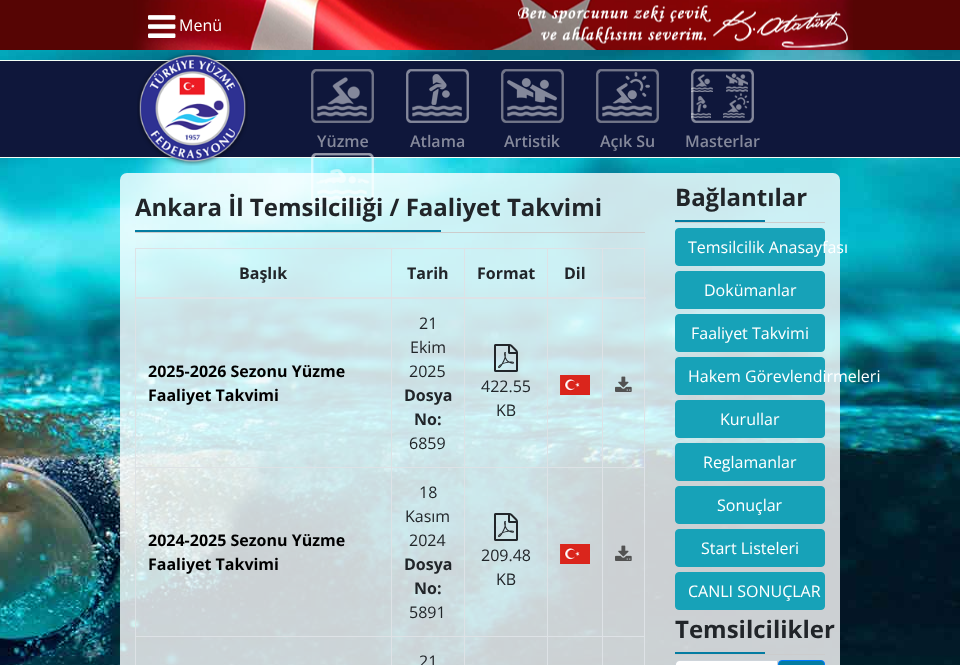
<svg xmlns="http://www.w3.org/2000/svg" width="960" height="665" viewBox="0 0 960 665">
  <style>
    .t1 { font: 16px Open Sans; fill: #fff; }
    .t2 { font: 600 16px Open Sans; fill: #85899b; }
    .t3 { font: bold 24px Open Sans; fill: #212529; }
    .t4 { font: bold 16px Open Sans; fill: #212529; }
    .t5 { font: bold 16px Open Sans; fill: #000; }
    .t6 { font: 16px Open Sans; fill: #212529; }
  </style>
  <rect width="100%" height="100%" fill="#fff"/>
  <image x="0" y="50" width="960" height="615" href="images/1.png"/>
  <rect x="0" y="0" width="960" height="50" fill="#560504"/>
  <image x="133" y="0" width="720" height="50" href="images/2.png"/>
  <image x="148" y="15" width="28" height="23" href="images/3.png"/>
  <text x="179" y="31" class="t1">Menü</text>
  <rect x="0" y="61" width="960" height="96" fill="#0f173b"/>
  <rect x="0" y="60" width="960" height="1" fill="#f3fff6"/>
  <rect x="0" y="157" width="960" height="1" fill="#f3fff6"/>
  <image x="137" y="52" width="111" height="114" href="images/4.png"/>
  <image x="311" y="69" width="63" height="54" href="images/5.png"/>
  <text x="317" y="147" class="t2">Yüzme</text>
  <image x="406" y="69" width="63" height="54" href="images/6.png"/>
  <text x="410" y="147" class="t2">Atlama</text>
  <image x="501" y="69" width="63" height="54" href="images/7.png"/>
  <text x="504" y="147" class="t2">Artistik</text>
  <image x="596" y="69" width="63" height="54" href="images/8.png"/>
  <text x="600" y="147" class="t2">Açık Su</text>
  <image x="691" y="69" width="63" height="54" href="images/9.png"/>
  <text x="685" y="147" class="t2">Masterlar</text>
  <rect x="120" y="173" width="720" height="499" rx="7" fill="#ffffffcc"/>
  <image x="311" y="153" width="63" height="54" href="images/10.png"/>
  <text x="135" y="216" class="t3">Ankara İl Temsilciliği / Faaliyet Takvimi</text>
  <rect x="135" y="232" width="510" height="1" fill="#ccc"/>
  <rect x="135" y="230" width="306" height="2" fill="#047ca1"/>
  <rect x="135" y="248" width="510" height="1" fill="#dee2e6"/>
  <rect x="644" y="248" width="1" height="417" fill="#dee2e6"/>
  <rect x="135" y="248" width="1" height="417" fill="#dee2e6"/>
  <text x="239" y="279" class="t4">Başlık</text>
  <text x="407" y="279" class="t4">Tarih</text>
  <text x="477" y="279" class="t4">Format</text>
  <text x="564" y="279" class="t4">Dil</text>
  <rect x="602" y="467" width="43" height="1" fill="#dee2e6"/>
  <rect x="602" y="636" width="43" height="1" fill="#dee2e6"/>
  <rect x="602" y="636" width="1" height="29" fill="#dee2e6"/>
  <rect x="547" y="636" width="56" height="1" fill="#dee2e6"/>
  <rect x="602" y="467" width="1" height="170" fill="#dee2e6"/>
  <rect x="547" y="467" width="56" height="1" fill="#dee2e6"/>
  <rect x="547" y="636" width="1" height="29" fill="#dee2e6"/>
  <rect x="464" y="636" width="84" height="1" fill="#dee2e6"/>
  <rect x="547" y="467" width="1" height="170" fill="#dee2e6"/>
  <rect x="464" y="467" width="84" height="1" fill="#dee2e6"/>
  <rect x="464" y="636" width="1" height="29" fill="#dee2e6"/>
  <rect x="391" y="636" width="74" height="1" fill="#dee2e6"/>
  <rect x="464" y="467" width="1" height="170" fill="#dee2e6"/>
  <rect x="391" y="467" width="74" height="1" fill="#dee2e6"/>
  <rect x="391" y="636" width="1" height="29" fill="#dee2e6"/>
  <rect x="135" y="636" width="257" height="1" fill="#dee2e6"/>
  <rect x="391" y="467" width="1" height="170" fill="#dee2e6"/>
  <rect x="135" y="467" width="257" height="1" fill="#dee2e6"/>
  <rect x="391" y="248" width="1" height="220" fill="#dee2e6"/>
  <rect x="464" y="248" width="1" height="220" fill="#dee2e6"/>
  <rect x="547" y="248" width="1" height="220" fill="#dee2e6"/>
  <rect x="602" y="248" width="1" height="220" fill="#dee2e6"/>
  <rect x="135" y="297" width="511" height="2" fill="#dee2e6"/>
  <text x="148" y="377" class="t5">2025-2026 Sezonu Yüzme</text>
  <text x="148" y="401" class="t5">Faaliyet Takvimi</text>
  <text x="419" y="329" class="t6">21</text>
  <text x="410" y="353" class="t6">Ekim</text>
  <text x="409" y="377" class="t6">2025</text>
  <text x="404" y="401" class="t4">Dosya</text>
  <text x="414" y="425" class="t4">No:</text>
  <text x="409" y="449" class="t6">6859</text>
  <image x="494" y="344" width="24" height="28" href="images/11.png"/>
  <text x="481" y="392" class="t6">422.55</text>
  <text x="496" y="416" class="t6">KB</text>
  <image x="560" y="375" width="30" height="20" href="images/12.png"/>
  <image x="615" y="376" width="17" height="16" href="images/13.png"/>
  <text x="148" y="546" class="t5">2024-2025 Sezonu Yüzme</text>
  <text x="148" y="570" class="t5">Faaliyet Takvimi</text>
  <text x="419" y="498" class="t6">18</text>
  <text x="405" y="522" class="t6">Kasım</text>
  <text x="409" y="546" class="t6">2024</text>
  <text x="404" y="570" class="t4">Dosya</text>
  <text x="414" y="594" class="t4">No:</text>
  <text x="409" y="618" class="t6">5891</text>
  <image x="494" y="513" width="24" height="28" href="images/14.png"/>
  <text x="481" y="561" class="t6">209.48</text>
  <text x="496" y="585" class="t6">KB</text>
  <image x="560" y="544" width="30" height="20" href="images/12.png"/>
  <image x="615" y="545" width="17" height="16" href="images/15.png"/>
  <text x="419" y="667" class="t6">21</text>
  <text x="675" y="206" class="t3">Bağlantılar</text>
  <rect x="675" y="222" width="150" height="1" fill="#ccc"/>
  <rect x="675" y="220" width="90" height="2" fill="#047ca1"/>
  <rect x="675.5" y="228.5" width="149" height="37" rx="3.5" fill="#17a2b8" stroke="#17a2b8"/>
  <text x="688" y="253" class="t1">Temsilcilik Anasayfası</text>
  <rect x="675.5" y="271.5" width="149" height="37" rx="3.5" fill="#17a2b8" stroke="#17a2b8"/>
  <text x="704" y="296" class="t1">Dokümanlar</text>
  <rect x="675.5" y="314.5" width="149" height="37" rx="3.5" fill="#17a2b8" stroke="#17a2b8"/>
  <text x="691" y="339" class="t1">Faaliyet Takvimi</text>
  <rect x="675.5" y="357.5" width="149" height="37" rx="3.5" fill="#17a2b8" stroke="#17a2b8"/>
  <text x="688" y="382" class="t1">Hakem Görevlendirmeleri</text>
  <rect x="675.5" y="400.5" width="149" height="37" rx="3.5" fill="#17a2b8" stroke="#17a2b8"/>
  <text x="720" y="425" class="t1">Kurullar</text>
  <rect x="675.5" y="443.5" width="149" height="37" rx="3.5" fill="#17a2b8" stroke="#17a2b8"/>
  <text x="703" y="468" class="t1">Reglamanlar</text>
  <rect x="675.5" y="486.5" width="149" height="37" rx="3.5" fill="#17a2b8" stroke="#17a2b8"/>
  <text x="717" y="511" class="t1">Sonuçlar</text>
  <rect x="675.5" y="529.5" width="149" height="37" rx="3.5" fill="#17a2b8" stroke="#17a2b8"/>
  <text x="701" y="554" class="t1">Start Listeleri</text>
  <rect x="675.5" y="572.5" width="149" height="37" rx="3.5" fill="#17a2b8" stroke="#17a2b8"/>
  <text x="688" y="597" class="t1">CANLI SONUÇLAR</text>
  <text x="675" y="638" class="t3">Temsilcilikler</text>
  <rect x="675" y="654" width="150" height="1" fill="#ccc"/>
  <rect x="675" y="652" width="90" height="2" fill="#047ca1"/>
  <path d="M679 661H777V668H679C677.5 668 676 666.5 676 665V664C676 662.5 677.5 661 679 661Z" fill="#fff"/>
  <path d="M679 660.5H777.5V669.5H679C677 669.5 675.5 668 675.5 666V664C675.5 662 677 660.5 679 660.5Z" fill="none" stroke="#ced4da"/>
  <rect x="778.5" y="660.5" width="46" height="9" rx="3.5" fill="#047ca1" stroke="#007bff"/>
</svg>
